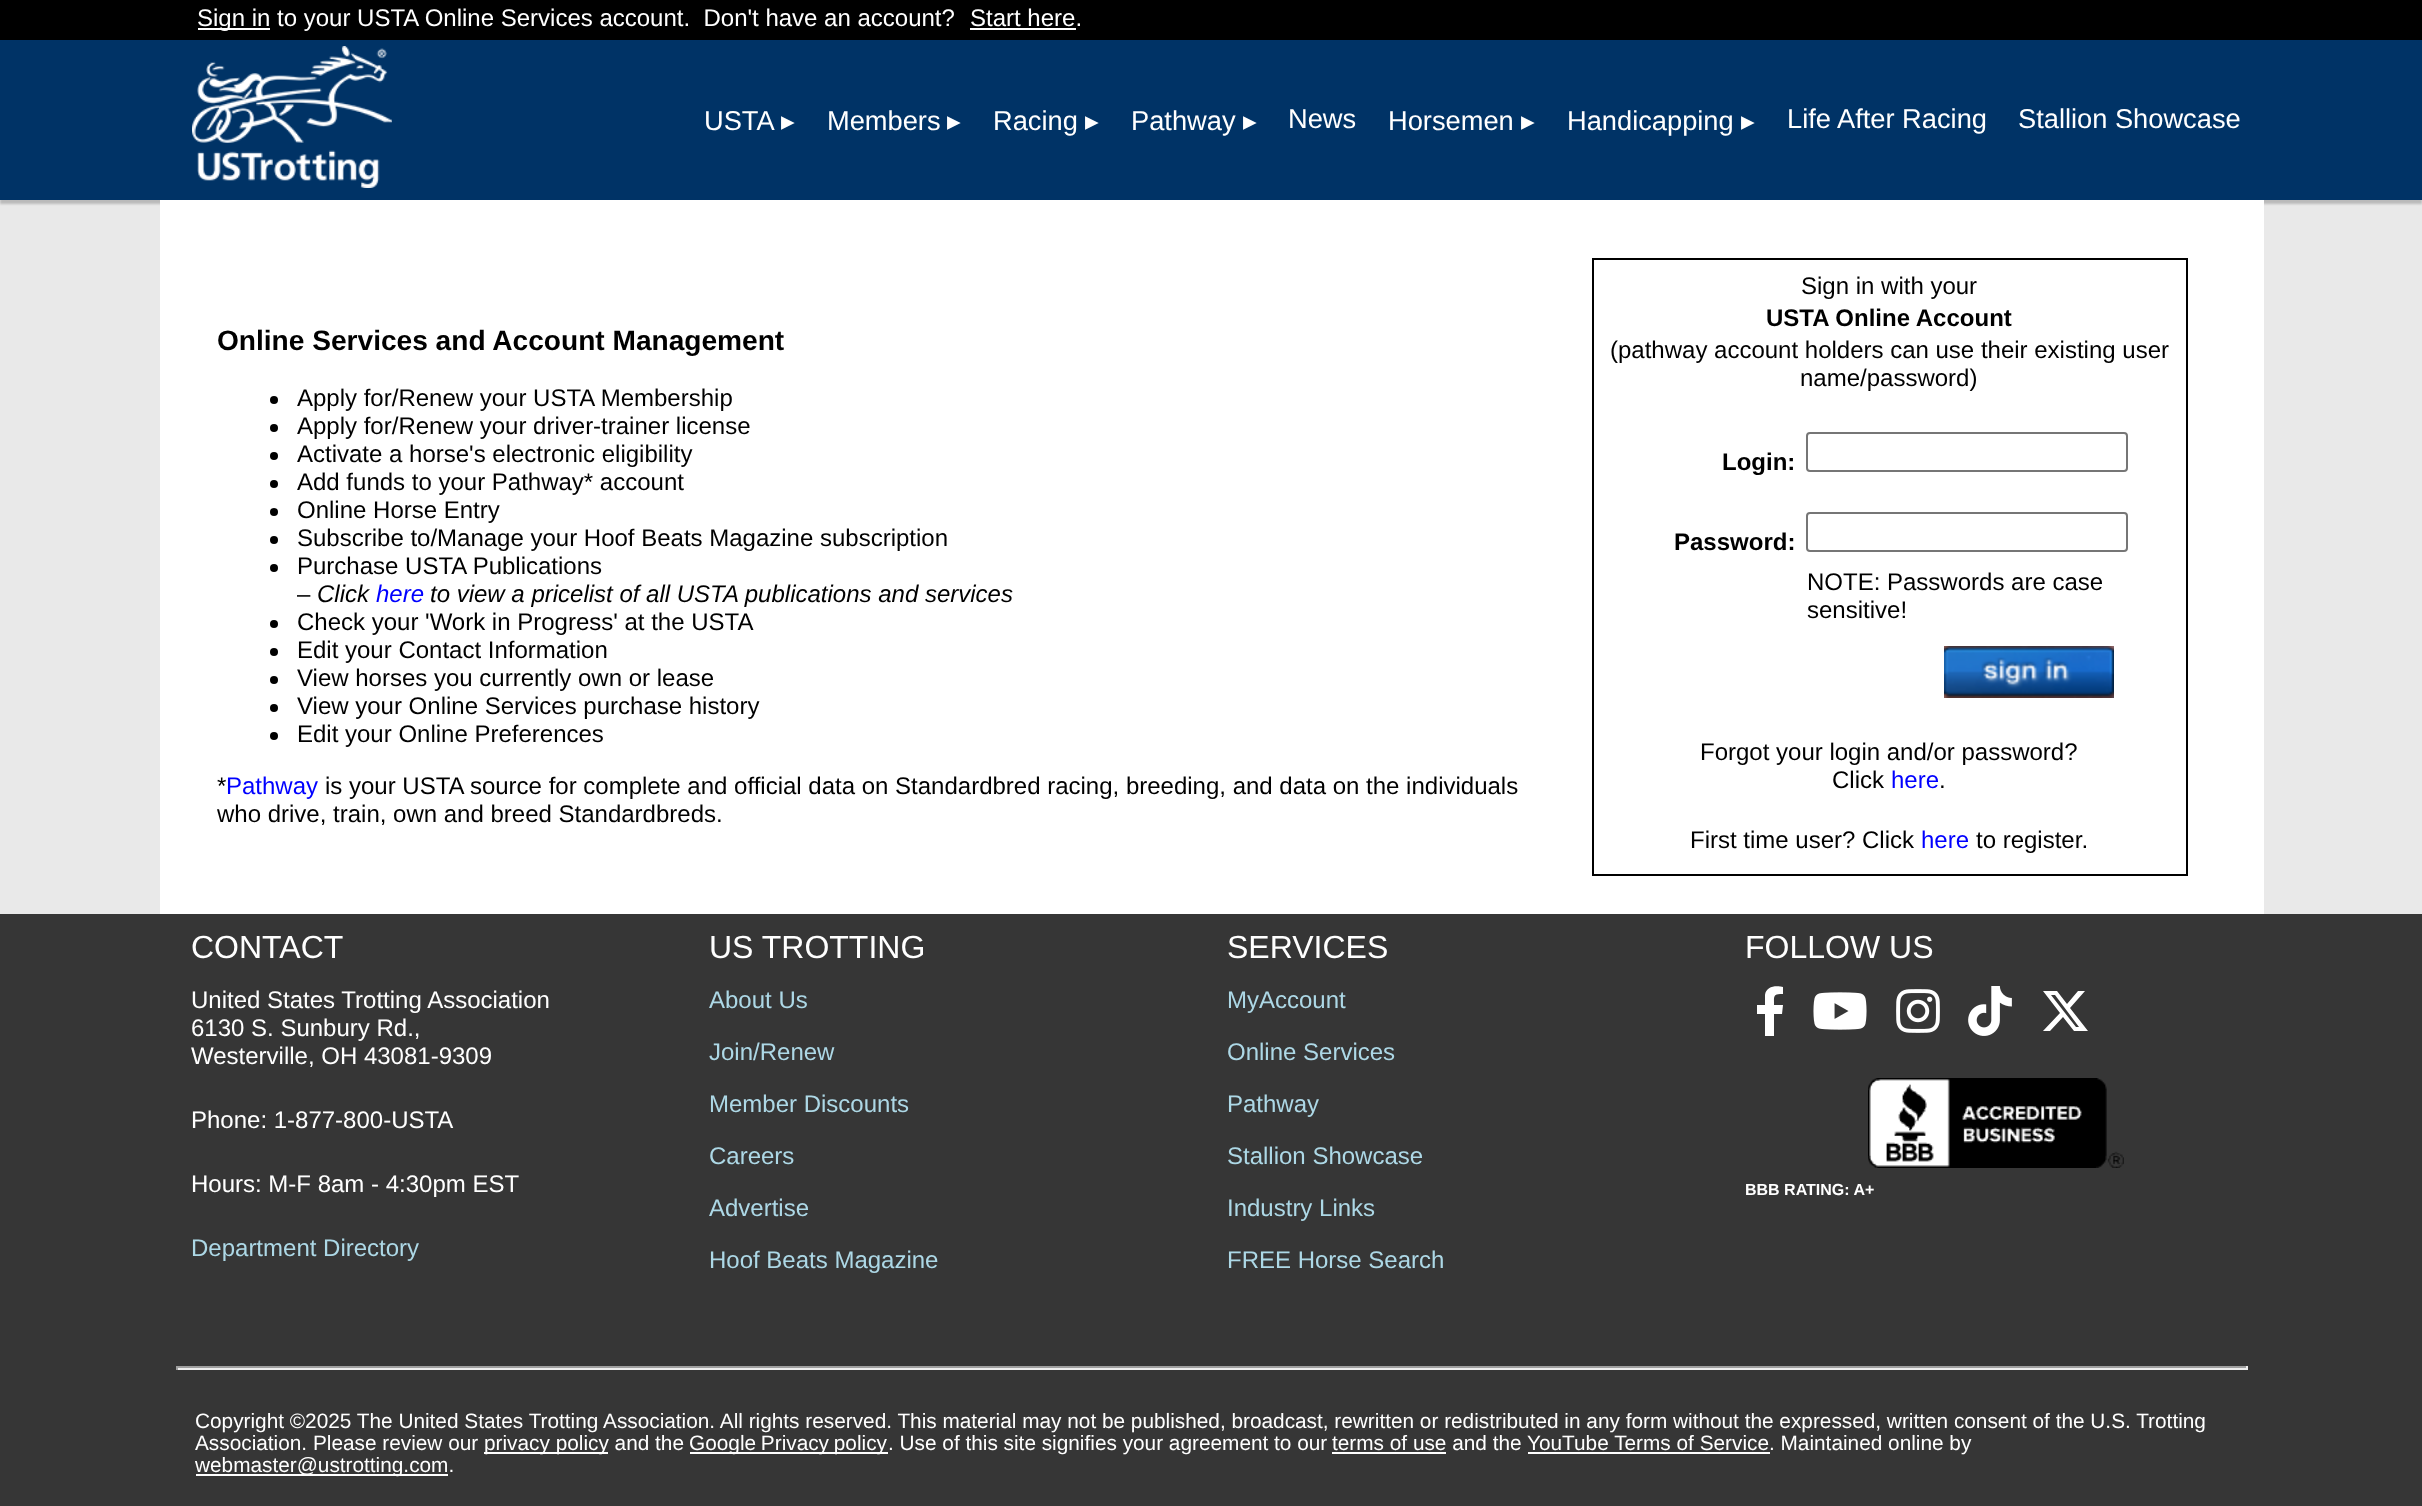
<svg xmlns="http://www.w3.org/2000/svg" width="2422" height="1506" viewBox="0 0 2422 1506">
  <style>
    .t1 { font: 24px Liberation Sans; fill: #fff; }
    .t2 { font: 27.25px Liberation Sans; fill: #fff; }
    .t3 { font: 27.25px DejaVu Sans; fill: #fff; }
    .t4 { font: bold 28.1px Liberation Sans; fill: #000; }
    .t5 { font: 24px Liberation Sans; fill: #000; }
    .t6 { font: italic 24px Liberation Sans; fill: #000; }
    .t7 { font: italic 24px Liberation Sans; fill: #00f; }
    .t8 { font: 24px Liberation Sans; fill: #00f; }
    .t9 { font: bold 24px Liberation Sans; fill: #000; }
    .t10 { font: 32px Liberation Sans; fill: #fff; }
    .t11 { font: 24px Liberation Sans; fill: #add8e6; }
    .t12 { font: bold 16px Liberation Sans; fill: #fff; }
    .t13 { font: 20.8px Liberation Sans; fill: #fff; }
  </style>
  <rect width="100%" height="100%" fill="#e9e9e9"/>
  <rect x="0" y="0" width="2422" height="40" fill="#000"/>
  <rect x="198" y="28" width="72" height="2" fill="#fff"/>
  <text x="197" y="26" class="t1" xml:space="preserve">Sign in to your USTA Online Services account.  Don't have an account?</text>
  <text x="970" y="26" class="t1">Start here.</text>
  <rect x="970" y="28" width="106" height="2" fill="#fff"/>
  <rect x="0" y="44" width="2422" height="160" fill="#00000033" filter="blur(1px)"/>
  <rect x="0" y="40" width="2422" height="160" fill="#036"/>
  <image x="192" y="46" width="200" height="142" href="images/1.png"/>
  <text x="704" y="130" class="t2">USTA</text>
  <text x="781" y="130" class="t3">▸</text>
  <text x="827" y="130" class="t2">Members</text>
  <text x="947" y="130" class="t3">▸</text>
  <text x="993" y="130" class="t2">Racing</text>
  <text x="1085" y="130" class="t3">▸</text>
  <text x="1131" y="130" class="t2">Pathway</text>
  <text x="1243" y="130" class="t3">▸</text>
  <text x="1288" y="128" class="t2">News</text>
  <text x="1388" y="130" class="t2">Horsemen</text>
  <text x="1521" y="130" class="t3">▸</text>
  <text x="1567" y="130" class="t2">Handicapping</text>
  <text x="1741" y="130" class="t3">▸</text>
  <text x="1787" y="128" class="t2">Life After Racing</text>
  <text x="2018" y="128" class="t2">Stallion Showcase</text>
  <rect x="160" y="200" width="2104" height="714" fill="#fff"/>
  <text x="217" y="350" class="t4">Online Services and Account Management</text>
  <circle cx="274" cy="400" r="4" fill="#000"/>
  <text x="297" y="406" class="t5">Apply for/Renew your USTA Membership</text>
  <circle cx="274" cy="428" r="4" fill="#000"/>
  <text x="297" y="434" class="t5">Apply for/Renew your driver-trainer license</text>
  <circle cx="274" cy="456" r="4" fill="#000"/>
  <text x="297" y="462" class="t5">Activate a horse's electronic eligibility</text>
  <circle cx="274" cy="484" r="4" fill="#000"/>
  <text x="297" y="490" class="t5">Add funds to your Pathway* account</text>
  <circle cx="274" cy="512" r="4" fill="#000"/>
  <text x="297" y="518" class="t5">Online Horse Entry</text>
  <circle cx="274" cy="540" r="4" fill="#000"/>
  <text x="297" y="546" class="t5">Subscribe to/Manage your Hoof Beats Magazine subscription</text>
  <circle cx="274" cy="568" r="4" fill="#000"/>
  <text x="297" y="574" class="t5">Purchase USTA Publications</text>
  <text x="297" y="602" class="t5">–</text>
  <text x="317" y="602" class="t6">Click</text>
  <text x="376" y="602" class="t7">here</text>
  <text x="430" y="602" class="t6">to view a pricelist of all USTA publications and services</text>
  <circle cx="274" cy="624" r="4" fill="#000"/>
  <text x="297" y="630" class="t5">Check your 'Work in Progress' at the USTA</text>
  <circle cx="274" cy="652" r="4" fill="#000"/>
  <text x="297" y="658" class="t5">Edit your Contact Information</text>
  <circle cx="274" cy="680" r="4" fill="#000"/>
  <text x="297" y="686" class="t5">View horses you currently own or lease</text>
  <circle cx="274" cy="708" r="4" fill="#000"/>
  <text x="297" y="714" class="t5">View your Online Services purchase history</text>
  <circle cx="274" cy="736" r="4" fill="#000"/>
  <text x="297" y="742" class="t5">Edit your Online Preferences</text>
  <text x="217" y="794" class="t5">*</text>
  <text x="226" y="794" class="t8">Pathway</text>
  <text x="325" y="794" class="t5">is your USTA source for complete and official data on Standardbred racing, breeding, and data on the individuals</text>
  <text x="217" y="822" class="t5">who drive, train, own and breed Standardbreds.</text>
  <rect x="1593" y="259" width="594" height="616" fill="none" stroke="#000" stroke-width="2"/>
  <text x="1801" y="294" class="t5">Sign in with your</text>
  <text x="1766" y="326" class="t9">USTA Online Account</text>
  <text x="1610" y="358" class="t5">(pathway account holders can use their existing user</text>
  <text x="1800" y="386" class="t5">name/password)</text>
  <text x="1722" y="470" class="t9">Login:</text>
  <rect x="1807" y="433" width="320" height="38" rx="3" fill="none" stroke="#767676" stroke-width="2"/>
  <text x="1674" y="550" class="t9">Password:</text>
  <rect x="1807" y="513" width="320" height="38" rx="3" fill="none" stroke="#767676" stroke-width="2"/>
  <text x="1807" y="590" class="t5">NOTE: Passwords are case</text>
  <text x="1807" y="618" class="t5">sensitive!</text>
  <image x="1944" y="646" width="170" height="52" href="images/2.png"/>
  <text x="1700" y="760" class="t5">Forgot your login and/or password?</text>
  <text x="1832" y="788" class="t5">Click</text>
  <text x="1891" y="788" class="t8">here</text>
  <text x="1939" y="788" class="t5">.</text>
  <text x="1690" y="848" class="t5">First time user? Click</text>
  <text x="1921" y="848" class="t8">here</text>
  <text x="1976" y="848" class="t5">to register.</text>
  <rect x="0" y="914" width="2422" height="592" fill="#363636"/>
  <text x="191" y="958" class="t10">CONTACT</text>
  <text x="191" y="1008" class="t1">United States Trotting Association</text>
  <text x="191" y="1036" class="t1">6130 S. Sunbury Rd.,</text>
  <text x="191" y="1064" class="t1">Westerville, OH 43081-9309</text>
  <text x="191" y="1128" class="t1">Phone: 1-877-800-USTA</text>
  <text x="191" y="1192" class="t1">Hours: M-F 8am - 4:30pm EST</text>
  <text x="191" y="1256" class="t11">Department Directory</text>
  <text x="709" y="958" class="t10">US TROTTING</text>
  <text x="709" y="1008" class="t11">About Us</text>
  <text x="709" y="1060" class="t11">Join/Renew</text>
  <text x="709" y="1112" class="t11">Member Discounts</text>
  <text x="709" y="1164" class="t11">Careers</text>
  <text x="709" y="1216" class="t11">Advertise</text>
  <text x="709" y="1268" class="t11">Hoof Beats Magazine</text>
  <text x="1227" y="958" class="t10">SERVICES</text>
  <text x="1227" y="1008" class="t11">MyAccount</text>
  <text x="1227" y="1060" class="t11">Online Services</text>
  <text x="1227" y="1112" class="t11">Pathway</text>
  <text x="1227" y="1164" class="t11">Stallion Showcase</text>
  <text x="1227" y="1216" class="t11">Industry Links</text>
  <text x="1227" y="1268" class="t11">FREE Horse Search</text>
  <text x="1745" y="958" class="t10">FOLLOW US</text>
  <path d="M1782 1014L1783 1005H1774C1774 996 1773 994 1783 994V987C1776 985 1766 986 1765 995V1005H1757V1014H1765V1036H1774V1014Z" fill="#fff"/>
  <image x="1813" y="992" width="54" height="38" href="images/3.png"/>
  <image x="1896" y="989" width="44" height="44" href="images/4.png"/>
  <image x="1968" y="986" width="44" height="50" href="images/5.png"/>
  <path d="M2078 991H2085L2070 1008L2088 1031H2074L2063 1017L2050 1031H2043L2060 1013L2043 991H2057L2067 1004ZM2076 1027H2079L2055 995H2051Z" fill="#fff"/>
  <image x="1868" y="1078" width="256" height="90" href="images/6.png"/>
  <text x="1745" y="1195" class="t12">BBB RATING: A+</text>
  <rect x="176" y="1366" width="2072" height="2" fill="#9f9f9f"/>
  <rect x="2246" y="1366" width="2" height="4" fill="#eee"/>
  <rect x="176" y="1368" width="2072" height="2" fill="#eee"/>
  <rect x="176" y="1366" width="2" height="4" fill="#9f9f9f"/>
  <text x="195" y="1428" class="t13">Copyright ©2025 The United States Trotting Association. All rights reserved. This material may not be published, broadcast, rewritten or redistributed in any form without the expressed, written consent of the U.S. Trotting</text>
  <text x="195" y="1450" class="t13">Association. Please review our</text>
  <rect x="484" y="1452" width="124" height="2" fill="#fff"/>
  <text x="484" y="1450" class="t13">privacy policy and the</text>
  <rect x="690" y="1452" width="198" height="2" fill="#fff"/>
  <text x="689" y="1450" word-spacing="-1" class="t13">Google Privacy policy</text>
  <text x="888" y="1450" class="t13">. Use of this site signifies your agreement to our</text>
  <text x="1332" y="1450" class="t13">terms of use and the</text>
  <rect x="1332" y="1452" width="114" height="2" fill="#fff"/>
  <rect x="1528" y="1452" width="242" height="2" fill="#fff"/>
  <text x="1527" y="1450" class="t13">YouTube Terms of Service. Maintained online by</text>
  <rect x="196" y="1474" width="252" height="2" fill="#fff"/>
  <text x="195" y="1472" class="t13">webmaster@ustrotting.com.</text>
</svg>
